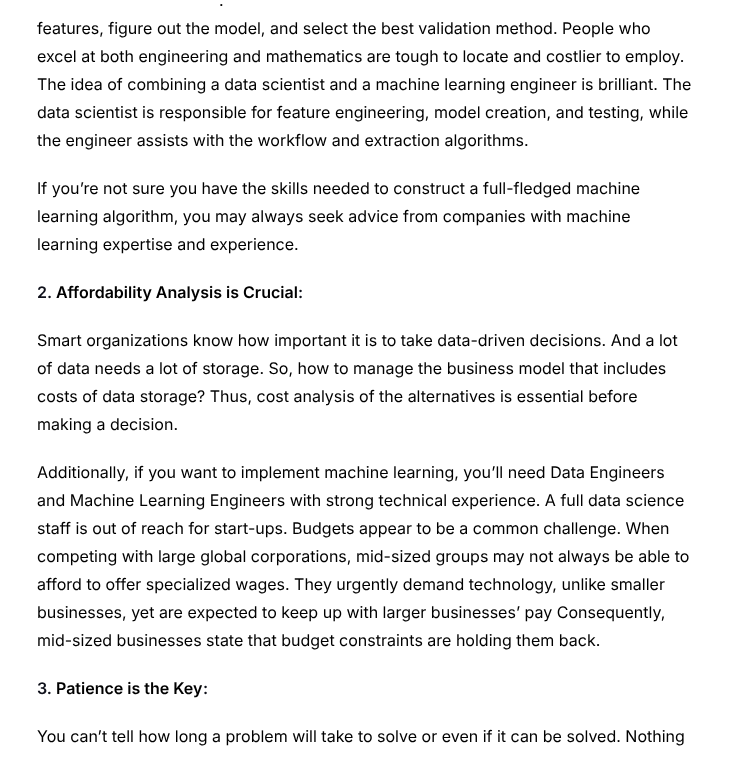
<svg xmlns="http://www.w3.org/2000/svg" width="731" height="761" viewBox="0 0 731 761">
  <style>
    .t1 { font: 16px Inter; fill: #000; }
    .t2 { font: 600 16px Inter; fill: #0e101a; }
    .t3 { font: 600 16px Inter; fill: #000; }
  </style>
  <rect width="100%" height="100%" fill="#fff"/>
  <text x="219" y="6" class="t1">.</text>
  <text x="37" y="34" class="t1">features, figure out the model, and select the best validation method. People who</text>
  <text x="37" y="62" class="t1">excel at both engineering and mathematics are tough to locate and costlier to employ.</text>
  <text x="37" y="90" class="t1">The idea of combining a data scientist and a machine learning engineer is brilliant. The</text>
  <text x="37" y="118" class="t1">data scientist is responsible for feature engineering, model creation, and testing, while</text>
  <text x="37" y="146" class="t1">the engineer assists with the workflow and extraction algorithms.</text>
  <text x="37" y="194" class="t1">If you’re not sure you have the skills needed to construct a full-fledged machine</text>
  <text x="37" y="222" class="t1">learning algorithm, you may always seek advice from companies with machine</text>
  <text x="37" y="250" class="t1">learning expertise and experience.</text>
  <text x="37" y="298" class="t2">2.</text>
  <text x="56" y="298" class="t3">Affordability Analysis is Crucial</text>
  <text x="298" y="298" class="t2">:</text>
  <text x="37" y="346" class="t1">Smart organizations know how important it is to take data-driven decisions. And a lot</text>
  <text x="37" y="374" class="t1">of data needs a lot of storage. So, how to manage the business model that includes</text>
  <text x="37" y="402" class="t1">costs of data storage? Thus, cost analysis of the alternatives is essential before</text>
  <text x="37" y="430" class="t1">making a decision.</text>
  <text x="37" y="478" class="t1">Additionally, if you want to implement machine learning, you’ll need Data Engineers</text>
  <text x="37" y="506" class="t1">and Machine Learning Engineers with strong technical experience. A full data science</text>
  <text x="37" y="534" class="t1">staff is out of reach for start-ups. Budgets appear to be a common challenge. When</text>
  <text x="37" y="562" class="t1">competing with large global corporations, mid-sized groups may not always be able to</text>
  <text x="37" y="590" class="t1">afford to offer specialized wages. They urgently demand technology, unlike smaller</text>
  <text x="37" y="618" class="t1">businesses, yet are expected to keep up with larger businesses’ pay Consequently,</text>
  <text x="37" y="646" class="t1">mid-sized businesses state that budget constraints are holding them back.</text>
  <text x="37" y="694" class="t2">3.</text>
  <text x="56" y="694" class="t3">Patience is the Key</text>
  <text x="203" y="694" class="t2">:</text>
  <text x="37" y="742" class="t1">You can’t tell how long a problem will take to solve or even if it can be solved. Nothing</text>
</svg>
